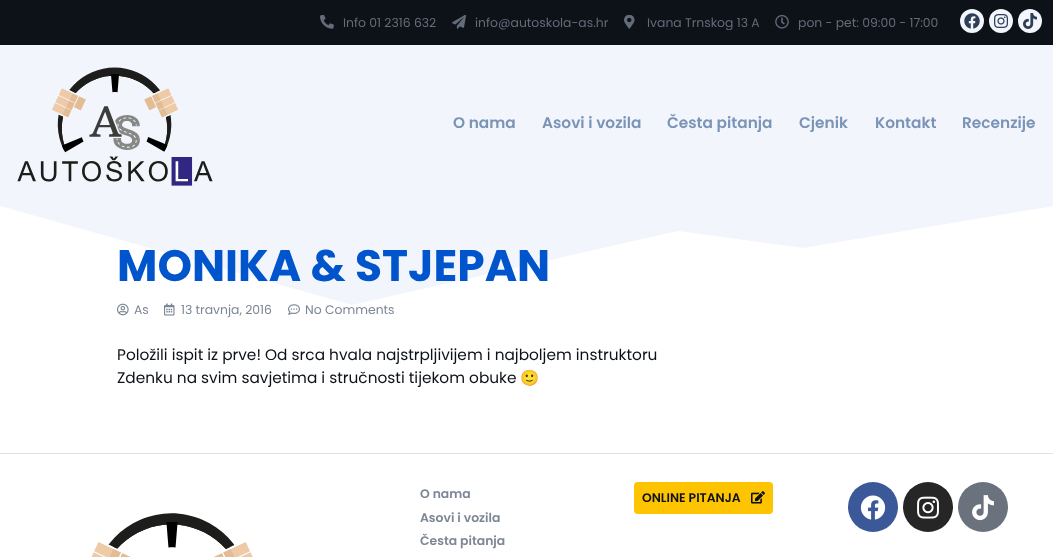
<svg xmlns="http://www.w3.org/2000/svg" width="1053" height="557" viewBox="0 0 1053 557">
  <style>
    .t1 { font: 12.4px Poppins; fill: #636c7a; }
    .t2 { font: 600 15.35px Poppins; fill: #7b93b6; }
    .t3 { font: bold 44px Poppins; fill: #0055cd; }
    .t4 { font: 12.4px Poppins; fill: #7c8694; }
    .t5 { font: 15.35px Poppins; fill: #0d1118; }
    .t6 { font: 15.35px Noto Color Emoji; fill: #0d1118; }
    .t7 { font: 600 12.4px Poppins; fill: #7c8694; }
    .t8 { font: 600 12.4px Poppins; fill: #0d1118; }
  </style>
  <defs>
    <clipPath id="clip1"><rect x="320" y="15" width="618" height="15"/></clipPath>
  </defs>
  <rect width="100%" height="100%" fill="#fff"/>
  <rect x="0" y="0" width="1053" height="45" fill="#0d1118"/>
  <image x="320" y="15" width="14" height="14" href="images/1.png"/>
  <text x="343" y="27" class="t1">Info 01 2316 632</text>
  <image x="452" y="15" width="14" height="14" href="images/2.png"/>
  <text x="475" y="27" class="t1">info@autoskola-as.hr</text>
  <image x="624" y="15" width="11" height="14" href="images/3.png"/>
  <g clip-path="url(#clip1)">
    <text x="647" y="27" class="t1">Ivana Trnskog 13 A</text>
  </g>
  <image x="775" y="15" width="14" height="14" href="images/4.png"/>
  <g clip-path="url(#clip1)">
    <text x="798" y="27" class="t1">pon - pet: 09:00 - 17:00</text>
  </g>
  <circle cx="972" cy="21" r="12" fill="#f2f6fc"/>
  <image x="964" y="13" width="16" height="16" href="images/5.png"/>
  <circle cx="1001" cy="21" r="12" fill="#f2f6fc"/>
  <image x="994" y="14" width="14" height="14" href="images/6.png"/>
  <circle cx="1030" cy="21" r="12" fill="#f2f6fc"/>
  <image x="1023" y="13" width="14" height="16" href="images/7.png"/>
  <rect x="0" y="45" width="1053" height="157" fill="#f2f6fc"/>
  <image x="17" y="67" width="196" height="119" href="images/8.png"/>
  <text x="453" y="128" class="t2">O nama</text>
  <text x="542" y="128" class="t2">Asovi i vozila</text>
  <text x="667" y="128" class="t2">Česta pitanja</text>
  <text x="799" y="128" class="t2">Cjenik</text>
  <text x="875" y="128" class="t2">Kontakt</text>
  <text x="962" y="128" class="t2">Recenzije</text>
  <path d="M803 248L678 231L352 305L0 206V202H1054V206" fill="#f2f6fc"/>
  <text x="117" y="281" class="t3">MONIKA &amp; STJEPAN</text>
  <image x="117" y="303" width="12" height="13" href="images/9.png"/>
  <text x="134" y="314" class="t4">As</text>
  <image x="164" y="303" width="11" height="13" href="images/10.png"/>
  <text x="181" y="314" class="t4">13 travnja, 2016</text>
  <image x="288" y="304" width="12" height="11" href="images/11.png"/>
  <text x="305" y="314" class="t4">No Comments</text>
  <text x="117" y="360" class="t5">Položili ispit iz prve! Od srca hvala najstrpljivijem i najboljem instruktoru</text>
  <text x="117" y="383" class="t5">Zdenku na svim savjetima i stručnosti tijekom obuke</text>
  <text x="520" y="383" class="t6">🙂</text>
  <rect x="0" y="453" width="1053" height="1" fill="#e0e3e6"/>
  <text x="420" y="498" class="t7">O nama</text>
  <text x="420" y="522" class="t7">Asovi i vozila</text>
  <text x="420" y="545" class="t7">Česta pitanja</text>
  <rect x="634" y="482" width="139" height="32" rx="4" fill="#ffc400"/>
  <text x="642" y="502" class="t8">ONLINE PITANJA</text>
  <image x="751" y="491" width="14" height="13" href="images/12.png"/>
  <circle cx="873" cy="507" r="25" fill="#3b5998"/>
  <image x="860" y="495" width="26" height="25" href="images/13.png"/>
  <circle cx="928" cy="507" r="25" fill="#262626"/>
  <image x="917" y="496" width="22" height="23" href="images/14.png"/>
  <circle cx="983" cy="507" r="25" fill="#69727d"/>
  <image x="972" y="495" width="22" height="26" href="images/15.png"/>
  <image x="91" y="513" width="162" height="44" href="images/16.png"/>
</svg>
